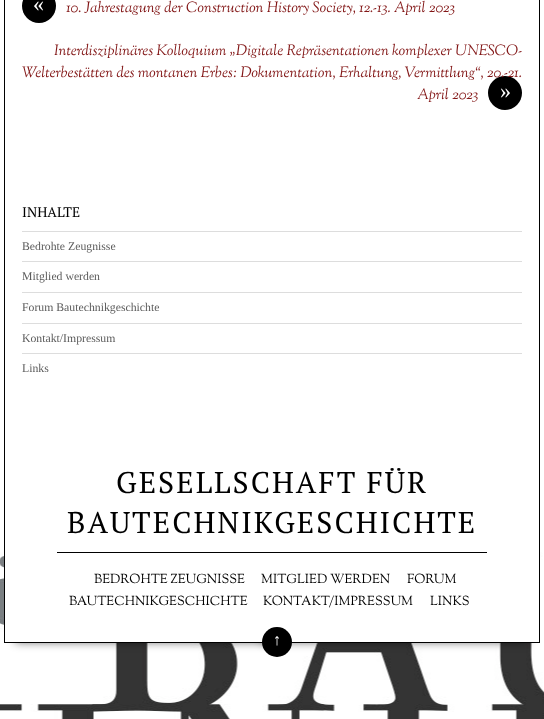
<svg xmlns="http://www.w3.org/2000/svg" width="544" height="719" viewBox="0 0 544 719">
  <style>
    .t1 { font: 22px Liberation Serif; fill: #fff; }
    .t2 { font: italic 15px Sorts Mill Goudy; fill: #821616; }
    .t3 { font: 14px PT Serif; fill: #000; }
    .t4 { font: 11.75px Liberation Serif; fill: #5b5b5b; }
    .t5 { font: 30px PT Serif; letter-spacing: 2px; fill: #000; }
    .t6 { font: 13px Sorts Mill Goudy; fill: #000; }
    .t7 { font: 16px Liberation Serif; fill: #fff; }
  </style>
  <rect width="100%" height="100%" fill="#fff"/>
  <image x="0" y="552" width="544" height="167" href="images/1.png"/>
  <rect x="15" y="632" width="267" height="10" fill="#00000099" filter="blur(5px)"/>
  <rect x="262" y="632" width="267" height="10" fill="#00000099" filter="blur(5px)"/>
  <rect x="5" y="552" width="534" height="90" fill="#fff"/>
  <rect x="4.5" y="-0.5" width="535" height="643" fill="none" stroke="#000"/>
  <circle cx="39" cy="6" r="17" fill="#000"/>
  <text x="33" y="11" class="t1">«</text>
  <text x="66" y="12" class="t2">10. Jahrestagung der Construction History Society, 12.-13. April 2023</text>
  <text x="54" y="55" class="t2">Interdisziplinäres Kolloquium „Digitale Repräsentationen komplexer UNESCO-</text>
  <circle cx="505" cy="93" r="17" fill="#000"/>
  <text x="22" y="77" class="t2">Welterbestätten des montanen Erbes: Dokumentation, Erhaltung, Vermittlung“, 20.-21.</text>
  <text x="417" y="99" class="t2">April 2023</text>
  <text x="500" y="98" class="t1">»</text>
  <text x="22" y="217" class="t3">INHALTE</text>
  <rect x="22" y="231" width="500" height="1" fill="#ddd"/>
  <text x="22" y="250" class="t4">Bedrohte Zeugnisse</text>
  <rect x="22" y="261" width="500" height="1" fill="#ddd"/>
  <text x="22" y="280" class="t4">Mitglied werden</text>
  <rect x="22" y="292" width="500" height="1" fill="#ddd"/>
  <text x="22" y="311" class="t4">Forum Bautechnikgeschichte</text>
  <rect x="22" y="323" width="500" height="1" fill="#ddd"/>
  <text x="22" y="342" class="t4">Kontakt/Impressum</text>
  <rect x="22" y="353" width="500" height="1" fill="#ddd"/>
  <text x="22" y="372" class="t4">Links</text>
  <text x="116" y="493" class="t5">GESELLSCHAFT FÜR</text>
  <text x="67" y="533" class="t5">BAUTECHNIKGESCHICHTE</text>
  <rect x="57" y="552" width="430" height="1" fill="#000"/>
  <text x="94" y="583" class="t6">BEDROHTE ZEUGNISSE</text>
  <text x="261" y="583" class="t6">MITGLIED WERDEN</text>
  <text x="407" y="583" class="t6">FORUM</text>
  <text x="69" y="605" class="t6">BAUTECHNIKGESCHICHTE</text>
  <text x="263" y="605" class="t6">KONTAKT/IMPRESSUM</text>
  <text x="430" y="605" class="t6">LINKS</text>
  <circle cx="277" cy="642" r="15" fill="#000"/>
  <text x="273" y="645" class="t7">↑</text>
</svg>
